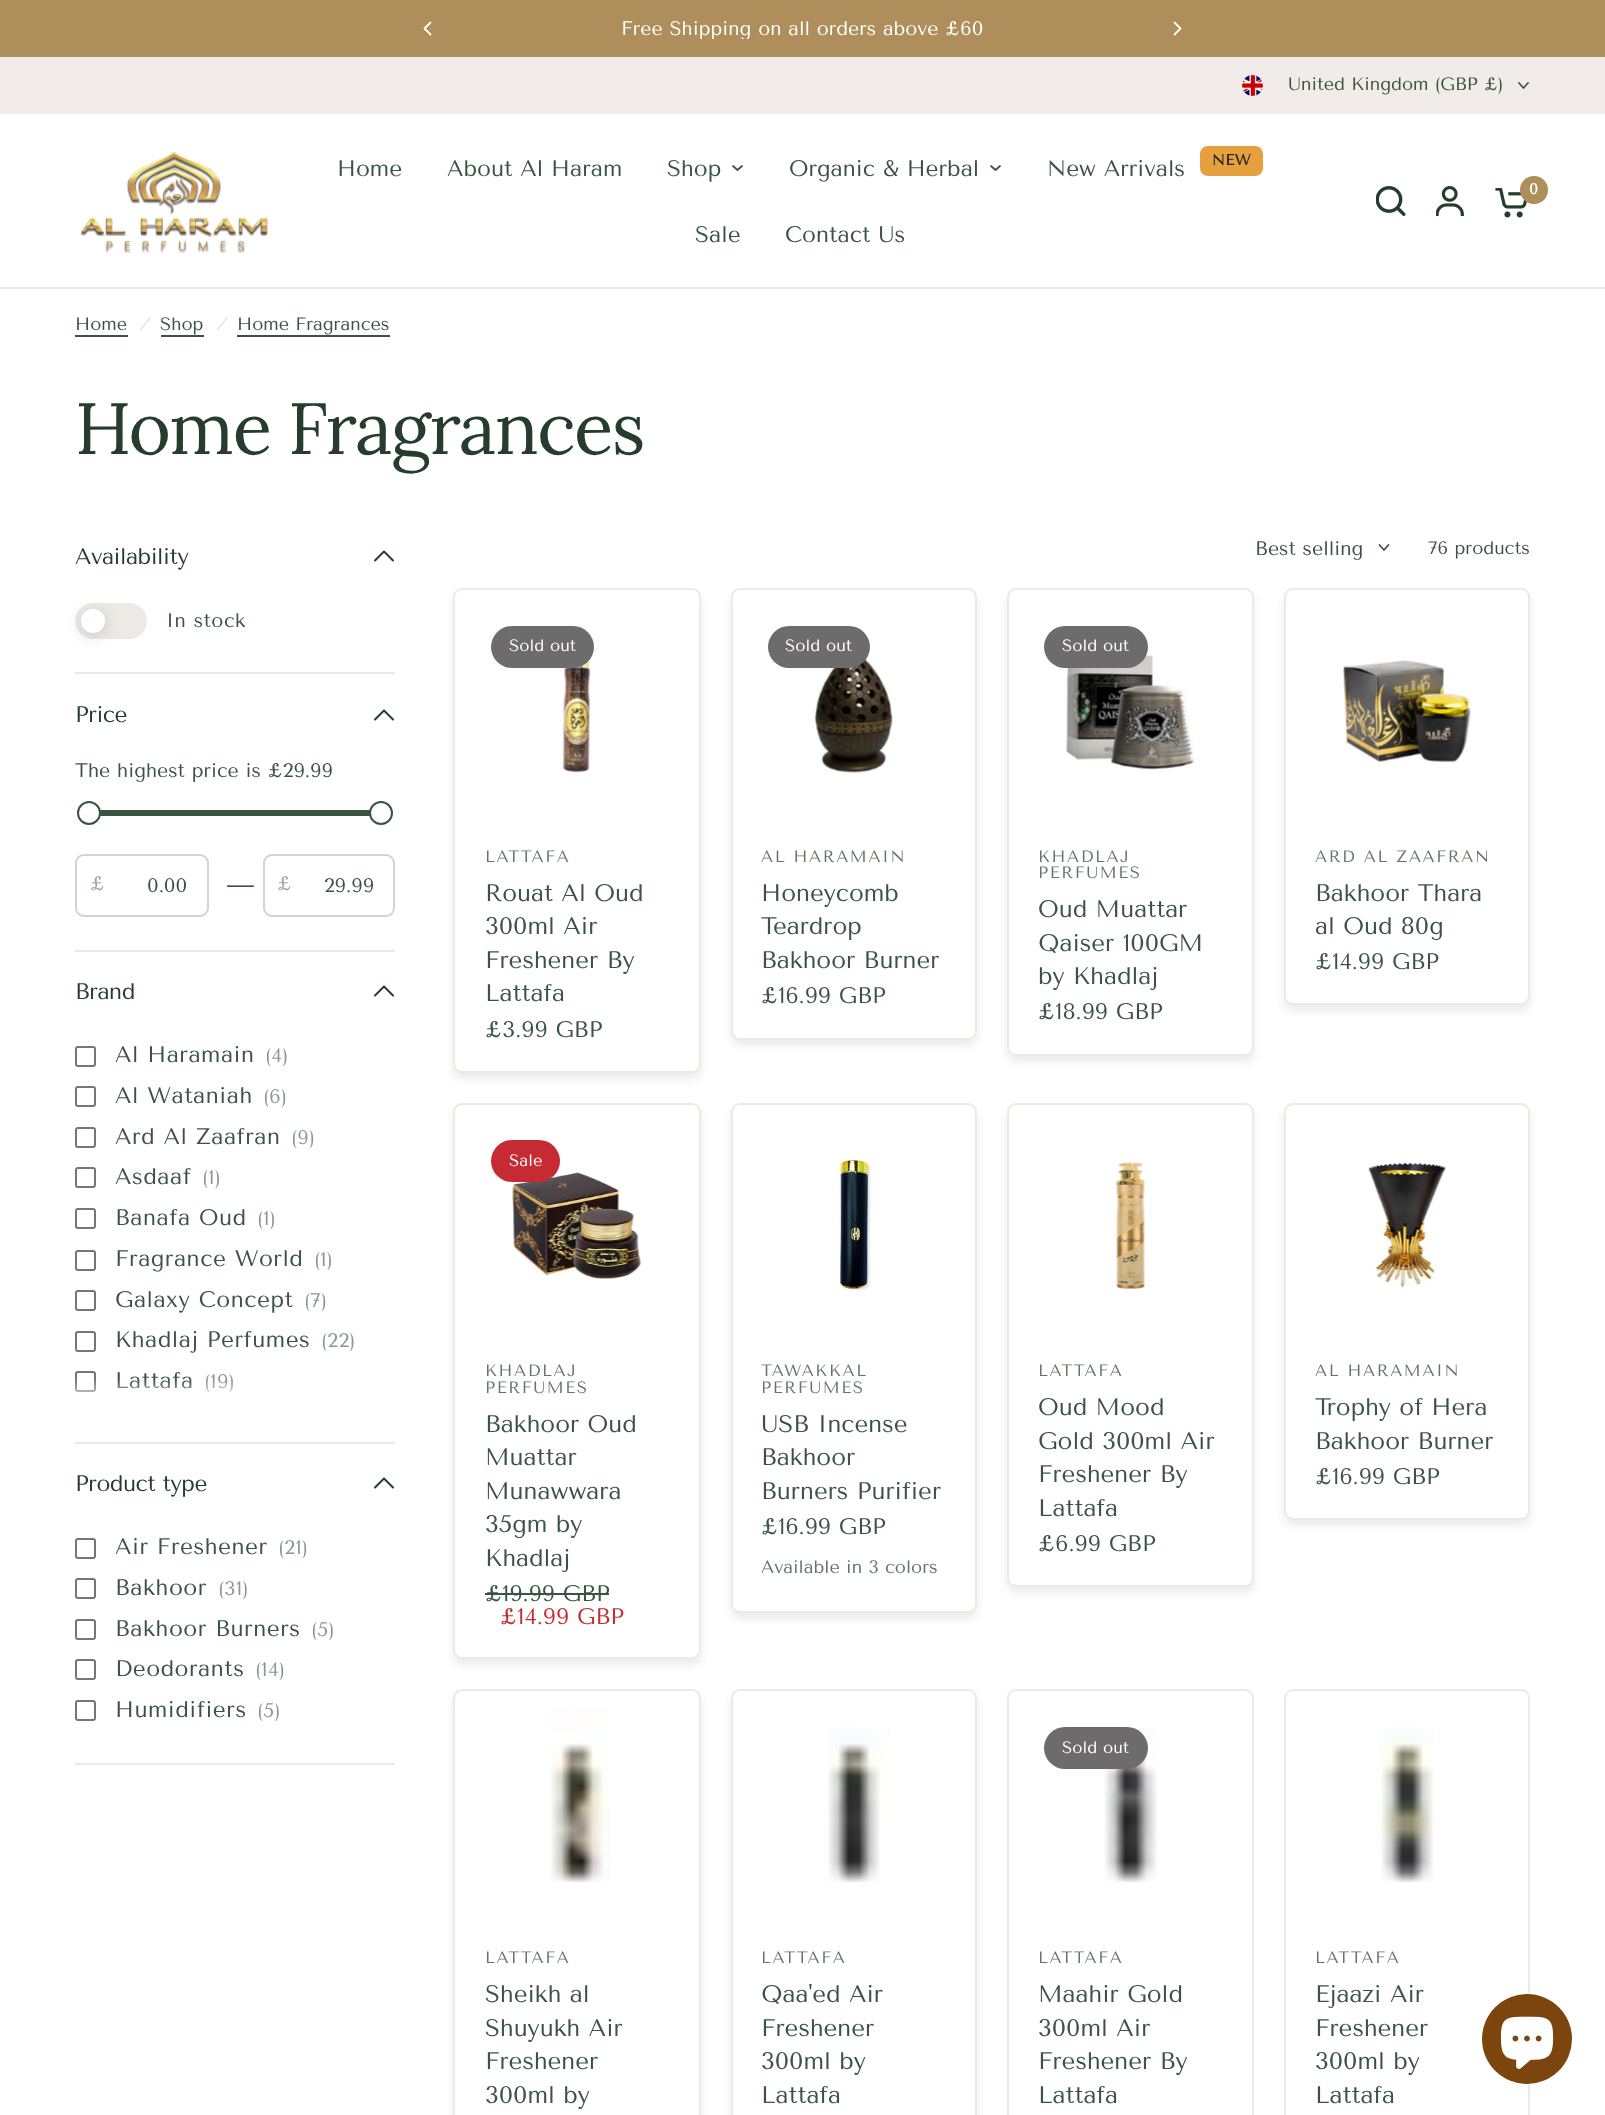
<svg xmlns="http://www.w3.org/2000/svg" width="1605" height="2115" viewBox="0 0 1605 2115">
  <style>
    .t1 { font: 19.5px Tenor Sans; fill: #fff; }
    .t2 { font: 18px Tenor Sans; fill: #3b5342; }
    .t3 { font: 22.5px Tenor Sans; fill: #3b5342; }
    .t4 { font: bold 15px Tenor Sans; letter-spacing: 0.5px; fill: #272422; }
    .t5 { font: bold 15px Tenor Sans; fill: #fff; }
    .t6 { font: italic 18px Tenor Sans; fill: #d8ddd9; }
    .t7 { font: 72.5px Lora; letter-spacing: -1.5px; fill: #263d2d; }
    .t8 { font: 22.5px Tenor Sans; letter-spacing: -0.5px; fill: #263d2d; }
    .t9 { font: 19.5px Tenor Sans; letter-spacing: 0.5px; fill: #3b5342; }
    .t10 { font: 19.5px Tenor Sans; fill: #3b5342; }
    .t11 { font: 19.5px Tenor Sans; fill: #9da9a1; }
    .t12 { font: 26px Tenor Sans; fill: #3b5342; }
    .t13 { font: 22.5px Tenor Sans; letter-spacing: 0.5px; fill: #3b5342; }
    .t14 { font: 19.5px Tenor Sans; letter-spacing: 0.5px; fill: #89988e; }
    .t15 { font: 16.5px Tenor Sans; fill: #fff; }
    .t16 { font: 16.5px Tenor Sans; letter-spacing: 1.6px; fill: #627568; }
    .t17 { font: 24px Tenor Sans; fill: #3b5342; }
    .t18 { font: 22.5px Tenor Sans; fill: #c62a32; }
    .t19 { font: 18px Tenor Sans; fill: #627568; }
  </style>
  <defs>
    <clipPath id="clip1"><rect x="428" y="18" width="750" height="21"/></clipPath>
    <linearGradient id="g1" gradientUnits="userSpaceOnUse" x1="235" y1="1379" x2="235" y2="1409"><stop offset="0" stop-color="#fff" stop-opacity="0"/><stop offset="1" stop-color="#fff"/></linearGradient>
  </defs>
  <rect width="100%" height="100%" fill="#fff"/>
  <rect x="0" y="0" width="1605" height="57" fill="#ae8e5a"/>
  <path d="M430.5 22.5L424.5 28.5L430.5 34.5" fill="none" stroke="#fff" stroke-width="1.8" stroke-linecap="round" stroke-linejoin="round"/>
  <g clip-path="url(#clip1)">
    <text x="621" y="35" class="t1">Free Shipping on all orders above £60</text>
  </g>
  <path d="M1174.5 22.5L1180.5 28.5L1174.5 34.5" fill="none" stroke="#fff" stroke-width="1.8" stroke-linecap="round" stroke-linejoin="round"/>
  <rect x="0" y="57" width="1605" height="57" fill="#f1ece9"/>
  <image x="1242" y="75" width="21" height="21" href="images/1.png"/>
  <text x="1288" y="90" class="t2">United Kingdom (GBP £)</text>
  <path d="M1528 83L1523.5 88L1519 83" fill="none" stroke="#3b5342" stroke-width="1.7" stroke-linecap="round" stroke-linejoin="round"/>
  <image x="80" y="151" width="188" height="102" href="images/2.png"/>
  <text x="337" y="176" class="t3">Home</text>
  <text x="447" y="176" class="t3">About Al Haram</text>
  <text x="667" y="176" class="t3">Shop</text>
  <path d="M742 166L737.5 170L733 166" fill="none" stroke="#3b5342" stroke-width="1.7" stroke-linecap="round" stroke-linejoin="round"/>
  <text x="789" y="176" class="t3">Organic &amp; Herbal</text>
  <path d="M1000 166L995.5 170L991 166" fill="none" stroke="#3b5342" stroke-width="1.7" stroke-linecap="round" stroke-linejoin="round"/>
  <text x="1047" y="176" class="t3">New Arrivals</text>
  <rect x="1200" y="146" width="63" height="30" rx="8" fill="#e7a03e"/>
  <text x="1212" y="165" class="t4">NEW</text>
  <text x="695" y="242" class="t3">Sale</text>
  <text x="785" y="242" class="t3">Contact Us</text>
  <image x="1376" y="186" width="30" height="30" href="images/3.png"/>
  <image x="1436" y="186" width="28" height="30" href="images/4.png"/>
  <image x="1495" y="188" width="32" height="30" href="images/5.png"/>
  <circle cx="1534" cy="190" r="14" fill="#ae8e5a"/>
  <text x="1529" y="194" class="t5">0</text>
  <rect x="0" y="287" width="1605" height="2" fill="#edeae6"/>
  <text x="75" y="330" class="t2">Home</text>
  <rect x="75" y="335" width="53" height="2" fill="#3b5342"/>
  <text x="139" y="330" class="t6">/</text>
  <text x="160" y="330" class="t2">Shop</text>
  <rect x="161" y="335" width="43" height="2" fill="#3b5342"/>
  <text x="216" y="330" class="t6">/</text>
  <text x="237" y="330" class="t2">Home Fragrances</text>
  <rect x="237" y="335" width="153" height="2" fill="#3b5342"/>
  <text x="75" y="454" class="t7">Home Fragrances</text>
  <rect x="75" y="672" width="320" height="2" fill="#edeae6"/>
  <text x="75" y="564" class="t8">Availability</text>
  <path d="M393 560.5L384 551.5L375 560.5" fill="none" stroke="#263d2d" stroke-width="2" stroke-linecap="round" stroke-linejoin="round"/>
  <rect x="75" y="603" width="72" height="36" rx="18" fill="#edeae6"/>
  <rect x="81" y="612" width="24" height="24" rx="12" fill="#00000026" filter="blur(7.5px)"/>
  <circle cx="93" cy="621" r="12" fill="#fff"/>
  <text x="166" y="627" class="t9">In stock</text>
  <rect x="75" y="950" width="320" height="2" fill="#edeae6"/>
  <text x="75" y="722" class="t8">Price</text>
  <path d="M393 719.5L384 710.5L375 719.5" fill="none" stroke="#263d2d" stroke-width="2" stroke-linecap="round" stroke-linejoin="round"/>
  <text x="75" y="777" class="t10">The highest price is £29.99</text>
  <rect x="100" y="810" width="270" height="6" fill="#3b5342"/>
  <circle cx="89" cy="813" r="11" fill="#fff" stroke="#3b5342" stroke-width="2"/>
  <circle cx="381" cy="813" r="11" fill="#fff" stroke="#3b5342" stroke-width="2"/>
  <rect x="76" y="855" width="132" height="61" rx="8" fill="none" stroke="#d3d3d3" stroke-width="2"/>
  <text x="90" y="890" class="t11">£</text>
  <text x="147" y="892" class="t10">0.00</text>
  <text x="226" y="893" class="t12">—</text>
  <rect x="264" y="855" width="130" height="61" rx="8" fill="none" stroke="#d3d3d3" stroke-width="2"/>
  <text x="277" y="890" class="t11">£</text>
  <text x="324" y="892" class="t10">29.99</text>
  <rect x="75" y="1442" width="320" height="2" fill="#edeae6"/>
  <text x="75" y="999" class="t8">Brand</text>
  <path d="M393 995.5L384 986.5L375 995.5" fill="none" stroke="#263d2d" stroke-width="2" stroke-linecap="round" stroke-linejoin="round"/>
  <rect x="76" y="1047" width="19" height="19" rx="2" fill="none" stroke="#767676" stroke-width="2"/>
  <text x="115" y="1062" class="t13">Al Haramain</text>
  <text x="265" y="1062" class="t14">(4)</text>
  <rect x="76" y="1087" width="19" height="19" rx="2" fill="none" stroke="#767676" stroke-width="2"/>
  <text x="115" y="1103" class="t13">Al Wataniah</text>
  <text x="263" y="1103" class="t14">(6)</text>
  <rect x="76" y="1128" width="19" height="19" rx="2" fill="none" stroke="#767676" stroke-width="2"/>
  <text x="115" y="1144" class="t13">Ard Al Zaafran</text>
  <text x="291" y="1144" class="t14">(9)</text>
  <rect x="76" y="1168" width="19" height="19" rx="2" fill="none" stroke="#767676" stroke-width="2"/>
  <text x="115" y="1184" class="t13">Asdaaf</text>
  <text x="202" y="1184" class="t14">(1)</text>
  <rect x="76" y="1209" width="19" height="19" rx="2" fill="none" stroke="#767676" stroke-width="2"/>
  <text x="115" y="1225" class="t13">Banafa Oud</text>
  <text x="257" y="1225" class="t14">(1)</text>
  <rect x="76" y="1251" width="19" height="19" rx="2" fill="none" stroke="#767676" stroke-width="2"/>
  <text x="115" y="1266" class="t13">Fragrance World</text>
  <text x="314" y="1266" class="t14">(1)</text>
  <rect x="76" y="1291" width="19" height="19" rx="2" fill="none" stroke="#767676" stroke-width="2"/>
  <text x="115" y="1307" class="t13">Galaxy Concept</text>
  <text x="304" y="1307" class="t14">(7)</text>
  <rect x="76" y="1332" width="19" height="19" rx="2" fill="none" stroke="#767676" stroke-width="2"/>
  <text x="115" y="1347" class="t13">Khadlaj Perfumes</text>
  <text x="321" y="1347" class="t14">(22)</text>
  <rect x="76" y="1372" width="19" height="19" rx="2" fill="none" stroke="#767676" stroke-width="2"/>
  <text x="115" y="1388" class="t13">Lattafa</text>
  <text x="204" y="1388" class="t14">(19)</text>
  <rect x="75" y="1380" width="158" height="13" fill="url(#g1)"/>
  <rect x="75" y="1763" width="320" height="2" fill="#edeae6"/>
  <text x="75" y="1491" class="t8">Product type</text>
  <path d="M393 1487.5L384 1478.5L375 1487.5" fill="none" stroke="#263d2d" stroke-width="2" stroke-linecap="round" stroke-linejoin="round"/>
  <rect x="76" y="1539" width="19" height="19" rx="2" fill="none" stroke="#767676" stroke-width="2"/>
  <text x="115" y="1554" class="t13">Air Freshener</text>
  <text x="278" y="1554" class="t14">(21)</text>
  <rect x="76" y="1579" width="19" height="19" rx="2" fill="none" stroke="#767676" stroke-width="2"/>
  <text x="115" y="1595" class="t13">Bakhoor</text>
  <text x="218" y="1595" class="t14">(31)</text>
  <rect x="76" y="1620" width="19" height="19" rx="2" fill="none" stroke="#767676" stroke-width="2"/>
  <text x="115" y="1636" class="t13">Bakhoor Burners</text>
  <text x="311" y="1636" class="t14">(5)</text>
  <rect x="76" y="1660" width="19" height="19" rx="2" fill="none" stroke="#767676" stroke-width="2"/>
  <text x="115" y="1676" class="t13">Deodorants</text>
  <text x="255" y="1676" class="t14">(14)</text>
  <rect x="76" y="1701" width="19" height="19" rx="2" fill="none" stroke="#767676" stroke-width="2"/>
  <text x="115" y="1717" class="t13">Humidifiers</text>
  <text x="257" y="1717" class="t14">(5)</text>
  <text x="1255" y="555" class="t10">Best selling</text>
  <path d="M1388.5 545L1384 550L1379.5 545" fill="none" stroke="#3b5342" stroke-width="1.7" stroke-linecap="round" stroke-linejoin="round"/>
  <text x="1428" y="554" class="t2">76 products</text>
  <rect x="453" y="594" width="248" height="485" rx="9" fill="#00000014" filter="blur(4.5px)"/>
  <rect x="454" y="589" width="246" height="483" rx="8" fill="#fff" stroke="#edeae6" stroke-width="2"/>
  <image x="562" y="657" width="29" height="116" href="images/6.png"/>
  <rect x="491" y="626" width="103" height="42" rx="21" fill="#6d6b6b"/>
  <text x="509" y="651" class="t15">Sold out</text>
  <text x="485" y="862" class="t16">LATTAFA</text>
  <text x="485" y="901" class="t17">Rouat Al Oud</text>
  <text x="485" y="934" class="t17">300ml Air</text>
  <text x="485" y="968" class="t17">Freshener By</text>
  <text x="485" y="1001" class="t17">Lattafa</text>
  <text x="485" y="1037" class="t3">£3.99 GBP</text>
  <rect x="731" y="594" width="246" height="452" rx="9" fill="#00000014" filter="blur(4.5px)"/>
  <rect x="732" y="589" width="244" height="450" rx="8" fill="#fff" stroke="#edeae6" stroke-width="2"/>
  <image x="814" y="647" width="79" height="127" href="images/7.png"/>
  <rect x="768" y="626" width="102" height="42" rx="21" fill="#6d6b6b"/>
  <text x="785" y="651" class="t15">Sold out</text>
  <text x="761" y="862" class="t16">AL HARAMAIN</text>
  <text x="761" y="901" class="t17">Honeycomb</text>
  <text x="761" y="934" class="t17">Teardrop</text>
  <text x="761" y="968" class="t17">Bakhoor Burner</text>
  <text x="761" y="1003" class="t3">£16.99 GBP</text>
  <rect x="1007" y="594" width="247" height="468" rx="9" fill="#00000014" filter="blur(4.5px)"/>
  <rect x="1008" y="589" width="245" height="466" rx="8" fill="#fff" stroke="#edeae6" stroke-width="2"/>
  <image x="1066" y="652" width="129" height="118" href="images/8.png"/>
  <rect x="1044" y="626" width="104" height="42" rx="21" fill="#6d6b6b"/>
  <text x="1062" y="651" class="t15">Sold out</text>
  <text x="1038" y="862" class="t16">KHADLAJ</text>
  <text x="1038" y="878" class="t16">PERFUMES</text>
  <text x="1038" y="917" class="t17">Oud Muattar</text>
  <text x="1038" y="951" class="t17">Qaiser 100GM</text>
  <text x="1038" y="984" class="t17">by Khadlaj</text>
  <text x="1038" y="1019" class="t3">£18.99 GBP</text>
  <rect x="1284" y="594" width="246" height="417" rx="9" fill="#00000014" filter="blur(4.5px)"/>
  <rect x="1285" y="589" width="244" height="415" rx="8" fill="#fff" stroke="#edeae6" stroke-width="2"/>
  <image x="1341" y="660" width="131" height="103" href="images/9.png"/>
  <text x="1315" y="862" class="t16">ARD AL ZAAFRAN</text>
  <text x="1315" y="901" class="t17">Bakhoor Thara</text>
  <text x="1315" y="934" class="t17">al Oud 80g</text>
  <text x="1315" y="969" class="t3">£14.99 GBP</text>
  <rect x="453" y="1109" width="248" height="556" rx="9" fill="#00000014" filter="blur(4.5px)"/>
  <rect x="454" y="1104" width="246" height="554" rx="8" fill="#fff" stroke="#edeae6" stroke-width="2"/>
  <image x="511" y="1172" width="131" height="107" href="images/10.png"/>
  <rect x="491" y="1140" width="69" height="42" rx="21" fill="#c62a32"/>
  <text x="509" y="1166" class="t15">Sale</text>
  <text x="485" y="1376" class="t16">KHADLAJ</text>
  <text x="485" y="1393" class="t16">PERFUMES</text>
  <text x="485" y="1432" class="t17">Bakhoor Oud</text>
  <text x="485" y="1465" class="t17">Muattar</text>
  <text x="485" y="1499" class="t17">Munawwara</text>
  <text x="485" y="1532" class="t17">35gm by</text>
  <text x="485" y="1566" class="t17">Khadlaj</text>
  <text x="485" y="1601" class="t3">£19.99 GBP</text>
  <rect x="485" y="1593" width="124" height="2" fill="#3b5342"/>
  <text x="500" y="1624" class="t18">£14.99 GBP</text>
  <rect x="731" y="1109" width="246" height="510" rx="9" fill="#00000014" filter="blur(4.5px)"/>
  <rect x="732" y="1104" width="244" height="508" rx="8" fill="#fff" stroke="#edeae6" stroke-width="2"/>
  <image x="839" y="1158" width="33" height="133" href="images/11.png"/>
  <text x="761" y="1376" class="t16">TAWAKKAL</text>
  <text x="761" y="1393" class="t16">PERFUMES</text>
  <text x="761" y="1432" class="t17">USB Incense</text>
  <text x="761" y="1465" class="t17">Bakhoor</text>
  <text x="761" y="1499" class="t17">Burners Purifier</text>
  <text x="761" y="1534" class="t3">£16.99 GBP</text>
  <text x="761" y="1573" class="t19">Available in 3 colors</text>
  <rect x="1007" y="1109" width="247" height="484" rx="9" fill="#00000014" filter="blur(4.5px)"/>
  <rect x="1008" y="1104" width="245" height="482" rx="8" fill="#fff" stroke="#edeae6" stroke-width="2"/>
  <image x="1115" y="1159" width="30" height="132" href="images/12.png"/>
  <text x="1038" y="1376" class="t16">LATTAFA</text>
  <text x="1038" y="1415" class="t17">Oud Mood</text>
  <text x="1038" y="1449" class="t17">Gold 300ml Air</text>
  <text x="1038" y="1482" class="t17">Freshener By</text>
  <text x="1038" y="1516" class="t17">Lattafa</text>
  <text x="1038" y="1551" class="t3">£6.99 GBP</text>
  <rect x="1284" y="1109" width="246" height="417" rx="9" fill="#00000014" filter="blur(4.5px)"/>
  <rect x="1285" y="1104" width="244" height="415" rx="8" fill="#fff" stroke="#edeae6" stroke-width="2"/>
  <image x="1368" y="1162" width="78" height="126" href="images/13.png"/>
  <text x="1315" y="1376" class="t16">AL HARAMAIN</text>
  <text x="1315" y="1415" class="t17">Trophy of Hera</text>
  <text x="1315" y="1449" class="t17">Bakhoor Burner</text>
  <text x="1315" y="1484" class="t3">£16.99 GBP</text>
  <rect x="453" y="1695" width="248" height="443" rx="9" fill="#00000014" filter="blur(4.5px)"/>
  <rect x="454" y="1690" width="246" height="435" rx="8" fill="#fff" stroke="#edeae6" stroke-width="2"/>
  <image x="550" y="1706" width="61" height="177" href="images/14.png"/>
  <text x="485" y="1963" class="t16">LATTAFA</text>
  <text x="485" y="2002" class="t17">Sheikh al</text>
  <text x="485" y="2036" class="t17">Shuyukh Air</text>
  <text x="485" y="2069" class="t17">Freshener</text>
  <text x="485" y="2103" class="t17">300ml by</text>
  <rect x="731" y="1695" width="246" height="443" rx="9" fill="#00000014" filter="blur(4.5px)"/>
  <rect x="732" y="1690" width="244" height="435" rx="8" fill="#fff" stroke="#edeae6" stroke-width="2"/>
  <image x="828" y="1727" width="63" height="156" href="images/15.png"/>
  <text x="761" y="1963" class="t16">LATTAFA</text>
  <text x="761" y="2002" class="t17">Qaa'ed Air</text>
  <text x="761" y="2036" class="t17">Freshener</text>
  <text x="761" y="2069" class="t17">300ml by</text>
  <text x="761" y="2103" class="t17">Lattafa</text>
  <rect x="1008" y="1690" width="245" height="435" rx="8" fill="none" stroke="#edeae6" stroke-width="2"/>
  <image x="1104" y="1727" width="53" height="156" href="images/16.png"/>
  <rect x="1044" y="1727" width="104" height="42" rx="21" fill="#6d6b6b"/>
  <text x="1062" y="1753" class="t15">Sold out</text>
  <text x="1038" y="1963" class="t16">LATTAFA</text>
  <text x="1038" y="2002" class="t17">Maahir Gold</text>
  <text x="1038" y="2036" class="t17">300ml Air</text>
  <text x="1038" y="2069" class="t17">Freshener By</text>
  <text x="1038" y="2103" class="t17">Lattafa</text>
  <rect x="1285" y="1690" width="244" height="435" rx="8" fill="none" stroke="#edeae6" stroke-width="2"/>
  <image x="1377" y="1727" width="57" height="156" href="images/17.png"/>
  <text x="1315" y="1963" class="t16">LATTAFA</text>
  <text x="1315" y="2002" class="t17">Ejaazi Air</text>
  <text x="1315" y="2036" class="t17">Freshener</text>
  <text x="1315" y="2069" class="t17">300ml by</text>
  <text x="1315" y="2103" class="t17">Lattafa</text>
  <circle cx="1527" cy="2039" r="45" fill="#7c450d"/>
  <image x="1500" y="2016" width="54" height="53" href="images/18.png"/>
</svg>
